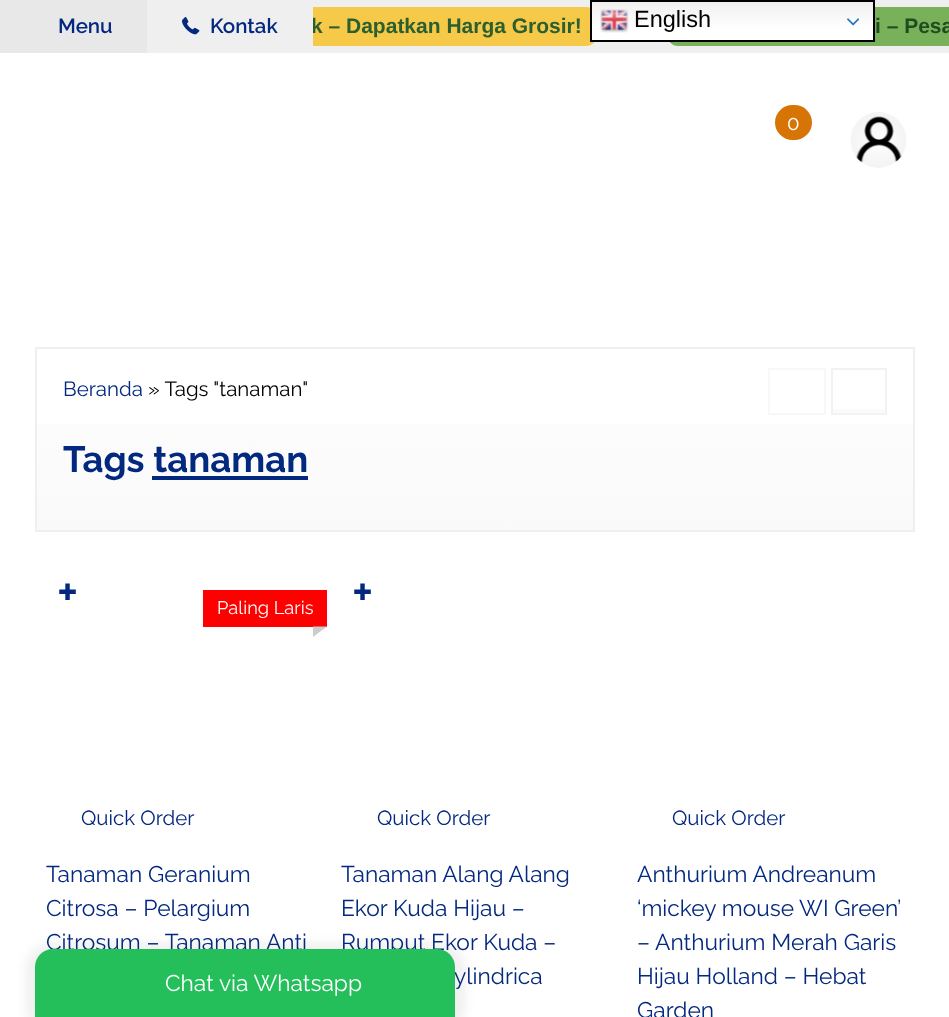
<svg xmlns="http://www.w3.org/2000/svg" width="949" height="1017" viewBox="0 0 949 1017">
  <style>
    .t1 { font: 23.5px Liberation Sans; fill: #000; }
    .t2 { font: bold 21px Liberation Sans; fill: #2b5f2f; }
    .t3 { font: 100 20.5px 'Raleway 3'; fill: #03287f; }
    .t4 { font: bold 21px Liberation Sans; fill: #1f4d1f; }
    .t5 { font: 100 20.5px Raleway; fill: #fff; }
    .t6 { font: 100 20.5px Raleway; fill: #03287f; }
    .t7 { font: 100 20.5px Raleway; fill: #000; }
    .t8 { font: 100 36.5px 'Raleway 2'; fill: #03287f; }
    .t9 { font: 22.75px DejaVu Sans; fill: #03287f; }
    .t10 { font: 100 22.75px Raleway; fill: #03287f; }
    .t11 { font: 100 18.25px Raleway; fill: #fff; }
    .t12 { font: 100 22.75px Raleway; fill: #fff; }
  </style>
  <defs>
    <linearGradient id="g1" gradientUnits="userSpaceOnUse" x1="732" y1="0" x2="732" y2="42"><stop offset="0" stop-color="#efefef"/><stop offset="0.7" stop-color="#fff"/></linearGradient>
    <linearGradient id="g2" gradientUnits="userSpaceOnUse" x1="475" y1="348" x2="475" y2="530"><stop offset="0" stop-color="#fff"/><stop offset="1" stop-color="#f9f9f9"/></linearGradient>
    <linearGradient id="g3" gradientUnits="userSpaceOnUse" x1="859" y1="413" x2="859" y2="369"><stop offset="0" stop-color="#fafafa"/><stop offset="1" stop-color="#fff"/></linearGradient>
  </defs>
  <rect width="100%" height="100%" fill="#fff"/>
  <rect x="313" y="0" width="636" height="53" fill="#efefef"/>
  <rect x="5" y="7" width="592" height="39" rx="11" fill="#f7c948"/>
  <path d="M678 7H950V46H678C672 46 667 41 667 35V18C667 12 672 7 678 7Z" fill="#78b159"/>
  <rect x="592" y="5" width="281" height="35" fill="url(#g1)"/>
  <rect x="591" y="1" width="283" height="40" fill="none" stroke="#000" stroke-width="2"/>
  <image x="600" y="9" width="29" height="24" href="images/1.png"/>
  <text x="634" y="27" class="t1">English</text>
  <image x="847" y="18" width="12" height="8" href="images/2.png"/>
  <text x="311" y="33" class="t2">k – Dapatkan Harga Grosir!</text>
  <rect x="147" y="0" width="166" height="53" fill="#efefef"/>
  <rect x="0" y="0" width="147" height="53" fill="#e8e8e8"/>
  <text x="58" y="33" class="t3">Menu</text>
  <image x="182" y="16" width="18" height="19" href="images/3.png"/>
  <text x="210" y="33" class="t3">Kontak</text>
  <text x="875" y="33" class="t4">i – Pesa</text>
  <rect x="775" y="105" width="37" height="35" rx="17.5" fill="#d67506"/>
  <text x="787" y="130" class="t5">0</text>
  <image x="850" y="112" width="57" height="56" href="images/4.png"/>
  <rect x="37" y="424" width="876" height="106" fill="url(#g2)"/>
  <rect x="36" y="348" width="878" height="183" fill="none" stroke="#efefef" stroke-width="2"/>
  <text x="63" y="396" class="t6">Beranda</text>
  <text x="148" y="396" class="t7">» Tags "tanaman"</text>
  <rect x="769" y="369" width="56" height="45" fill="none" stroke="#f8f8f8" stroke-width="2"/>
  <rect x="833" y="409" width="52" height="4" fill="url(#g3)"/>
  <rect x="832" y="369" width="54" height="45" fill="none" stroke="#f2f2f2" stroke-width="2"/>
  <text x="63" y="472" class="t8">Tags tanaman</text>
  <rect x="152" y="476" width="156" height="4" fill="#03287f"/>
  <text x="58" y="600" class="t9">✚</text>
  <text x="46" y="882" class="t10">Tanaman Geranium</text>
  <text x="46" y="916" class="t10">Citrosa – Pelargium</text>
  <text x="46" y="950" class="t10">Citrosum – Tanaman Anti</text>
  <rect x="203" y="590" width="124" height="37" fill="#f00"/>
  <text x="217" y="614" class="t11">Paling Laris</text>
  <path d="M313 637V626.5H327Z" fill="#ccc"/>
  <text x="81" y="825" class="t6">Quick Order</text>
  <text x="353" y="600" class="t9">✚</text>
  <text x="341" y="882" class="t10">Tanaman Alang Alang</text>
  <text x="341" y="916" class="t10">Ekor Kuda Hijau –</text>
  <text x="341" y="950" class="t10">Rumput Ekor Kuda –</text>
  <text x="454" y="984" class="t10">ylindrica</text>
  <text x="377" y="825" class="t6">Quick Order</text>
  <text x="672" y="825" class="t6">Quick Order</text>
  <text x="637" y="882" class="t10">Anthurium Andreanum</text>
  <text x="637" y="916" class="t10">‘mickey mouse WI Green’</text>
  <text x="637" y="950" class="t10">– Anthurium Merah Garis</text>
  <text x="637" y="984" class="t10">Hijau Holland – Hebat</text>
  <text x="637" y="1018" class="t10">Garden</text>
  <rect x="25" y="942" width="441" height="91" rx="28" fill="#33333312" filter="blur(5px)"/>
  <path d="M53 949H437C447 949 455 957 455 967V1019H35V967C35 957 43 949 53 949Z" fill="#24be5b"/>
  <text x="165" y="991" class="t12">Chat via Whatsapp</text>
</svg>
